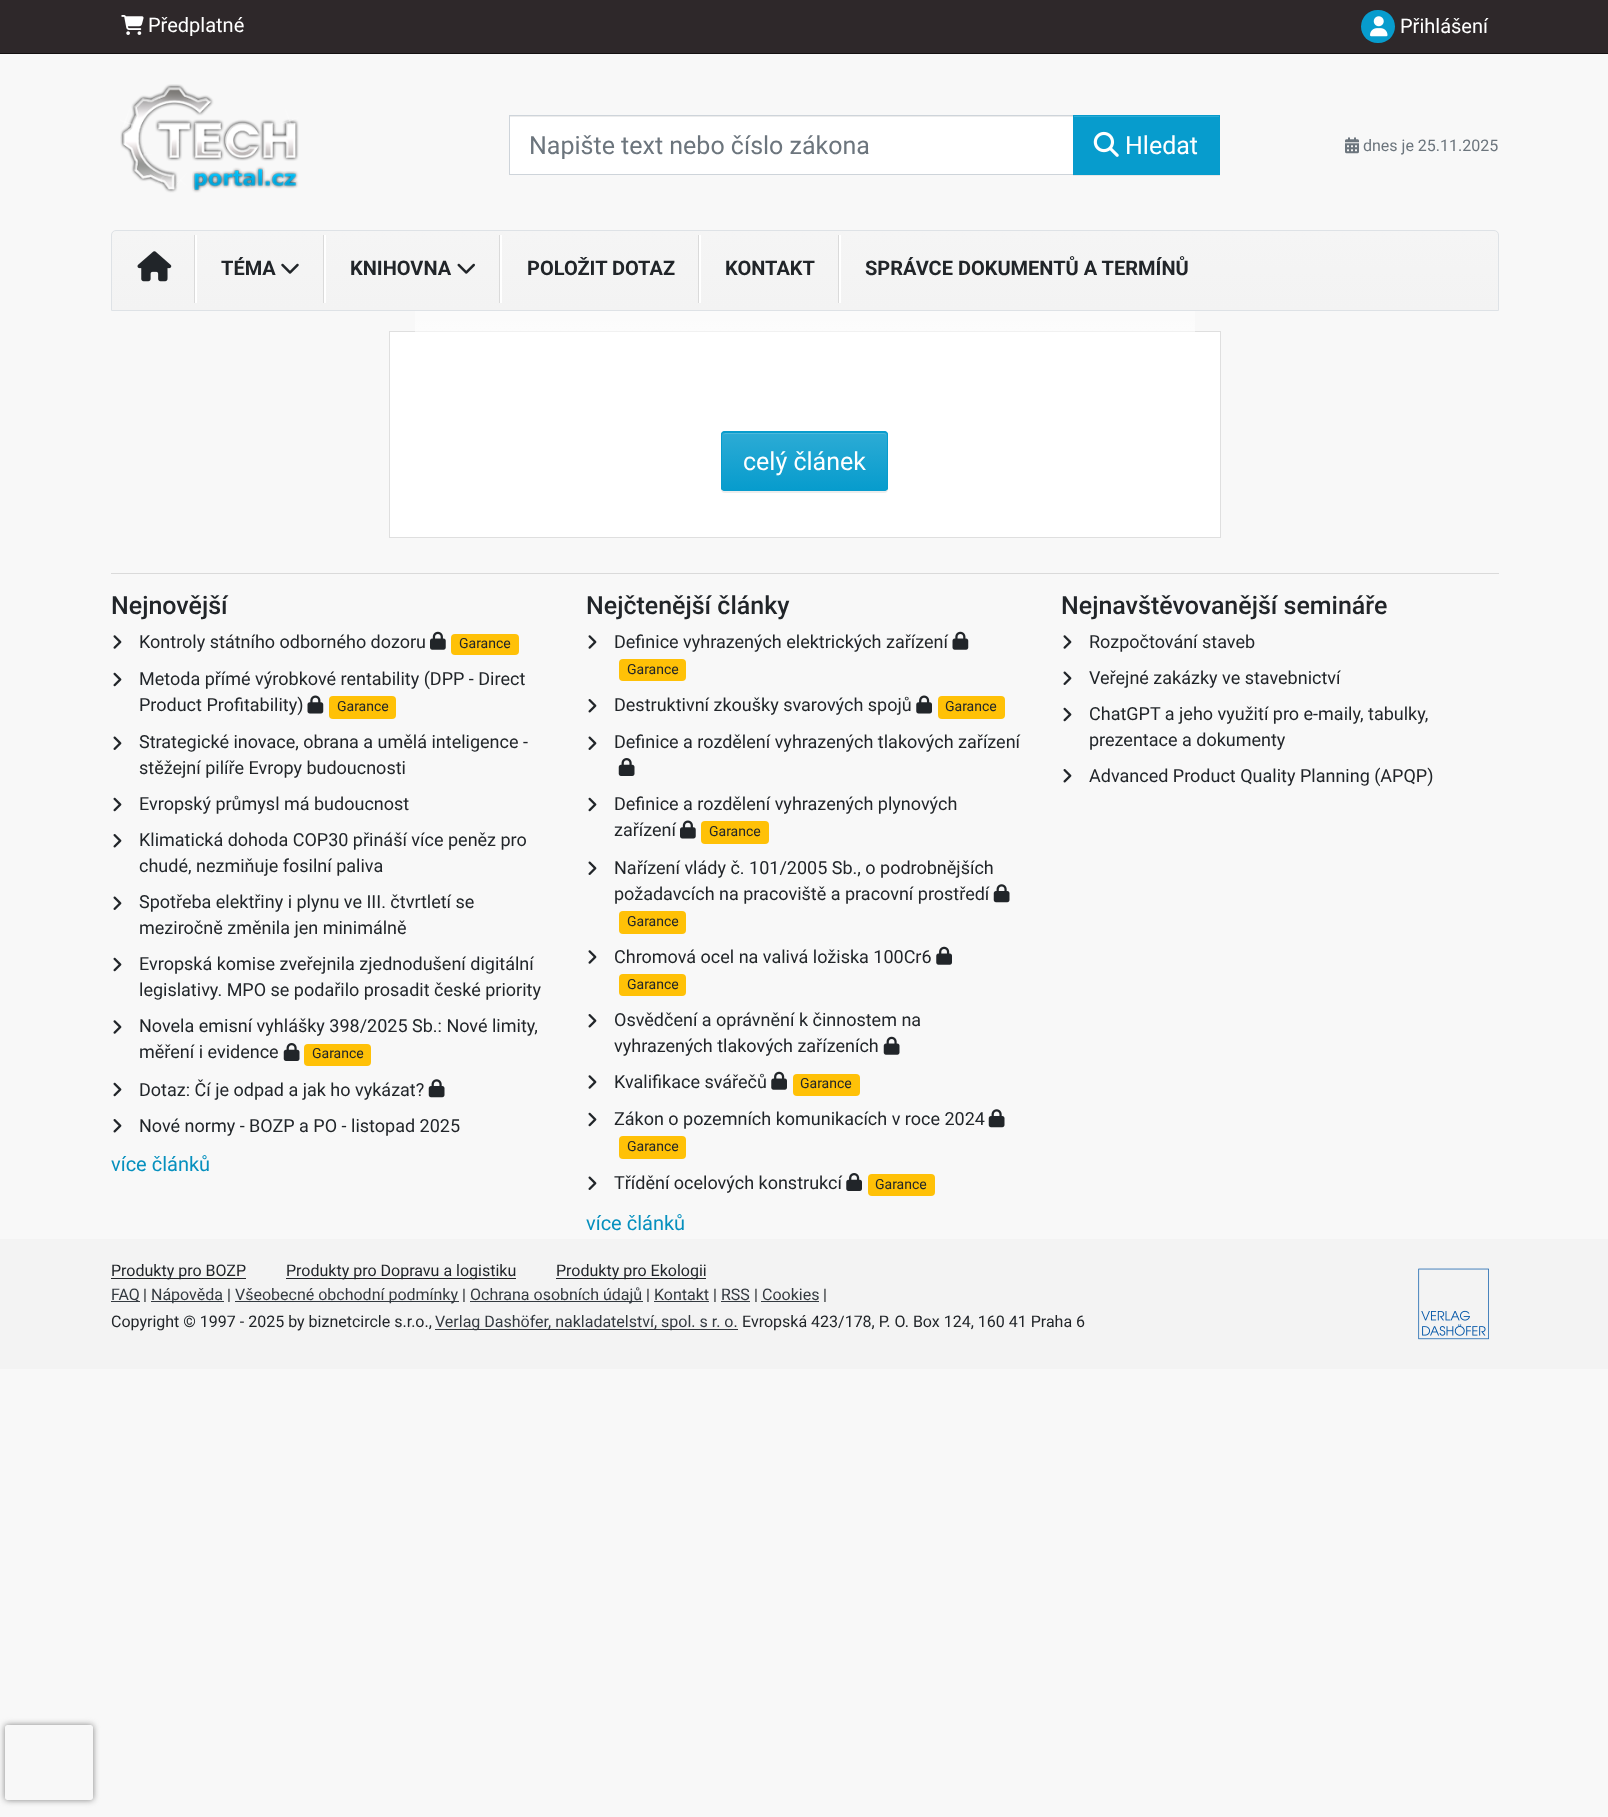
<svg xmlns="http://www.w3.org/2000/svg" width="1608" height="1817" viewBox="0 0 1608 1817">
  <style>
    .t1 { font: 20px Roboto; fill: #fff; }
    .t2 { font: 25px Roboto; fill: #6c757d; }
    .t3 { font: 25px Roboto; fill: #fff; }
    .t4 { font: 16px Roboto; fill: #6c757d; }
    .t5 { font: bold 20px Roboto; fill: #212529; }
    .t6 { font: 500 25px Roboto; fill: #212529; }
    .t7 { font: 18px Roboto; fill: #212529; }
    .t8 { font: 14px Roboto; fill: #212529; }
    .t9 { font: 20px Roboto; fill: #0690be; }
    .t10 { font: 16px Roboto; fill: #212529; }
    .t11 { font: 16px Roboto; fill: #343a40; }
  </style>
  <defs>
    <clipPath id="clip1"><path d="M116 230H1494C1497 230 1499 232 1499 235V311H111V235C111 232 113 230 116 230Z"/></clipPath>
    <linearGradient id="g1" gradientUnits="userSpaceOnUse" x1="805" y1="231" x2="805" y2="310"><stop offset="0" stop-color="#f5f5f5"/><stop offset="1" stop-color="#f3f3f3"/></linearGradient>
    <linearGradient id="g2" gradientUnits="userSpaceOnUse" x1="805" y1="251" x2="805" y2="391"><stop offset="0" stop-color="#fff" stop-opacity="0"/><stop offset="1" stop-color="#fff"/></linearGradient>
    <clipPath id="clip2"><rect x="721" y="431" width="167" height="60" rx="4"/></clipPath>
    <linearGradient id="g3" gradientUnits="userSpaceOnUse" x1="804" y1="433" x2="804" y2="490"><stop offset="0" stop-color="#2cabd5"/><stop offset="1" stop-color="#079ccd"/></linearGradient>
    <clipPath id="clip3"><path d="M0 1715H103V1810H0ZM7.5 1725H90.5C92 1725 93 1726 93 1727.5V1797.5C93 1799 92 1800 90.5 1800H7.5C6 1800 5 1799 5 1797.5V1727.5C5 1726 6 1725 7.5 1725Z" clip-rule="evenodd"/></clipPath>
  </defs>
  <rect width="100%" height="100%" fill="#f8f8f8"/>
  <rect x="0" y="0" width="1608" height="53" fill="#2e282a"/>
  <rect x="0" y="53" width="1608" height="1" fill="#131011"/>
  <image x="121" y="15" width="23" height="20" href="images/1.png"/>
  <text x="148" y="32" class="t1">Předplatné</text>
  <rect x="1361" y="10" width="34" height="33" rx="16.5" fill="#079ccd"/>
  <image x="1370" y="16" width="18" height="21" href="images/2.png"/>
  <text x="1400" y="33" class="t1">Přihlášení</text>
  <image x="120" y="84" width="179" height="109" href="images/3.png"/>
  <rect x="510" y="117" width="563" height="57" fill="#fff"/>
  <rect x="510" y="116" width="563" height="1" fill="#ececec"/>
  <rect x="509.5" y="115.5" width="564" height="59" fill="none" stroke="#ced4da"/>
  <text x="529" y="154" class="t2">Napište text nebo číslo zákona</text>
  <rect x="1073" y="116" width="147" height="60" fill="#00000012" filter="blur(0.5px)"/>
  <rect x="1073" y="115" width="147" height="60" fill="#079ccd"/>
  <rect x="1074" y="116" width="145" height="1" fill="#2cabd5"/>
  <image x="1093" y="131" width="26" height="26" href="images/4.png"/>
  <text x="1125" y="154" class="t3">Hledat</text>
  <image x="1345" y="137" width="14" height="17" href="images/5.png"/>
  <text x="1363" y="151" class="t4">dnes je 25.11.2025</text>
  <g clip-path="url(#clip1)">
    <rect x="111" y="231" width="1388" height="79" fill="url(#g1)"/>
  </g>
  <path d="M116 230.5H1494C1496.5 230.5 1498.5 232.5 1498.5 235V310.5H111.5V235C111.5 232.5 113.5 230.5 116 230.5Z" fill="none" stroke="#dee2e6"/>
  <image x="137" y="251" width="35" height="31" href="images/6.png"/>
  <rect x="195" y="235" width="2" height="68" fill="#fff"/>
  <rect x="194" y="235" width="1" height="68" fill="#dadada"/>
  <text x="221" y="275" class="t5">TÉMA</text>
  <image x="281" y="263" width="18" height="11" href="images/7.png"/>
  <rect x="324" y="235" width="2" height="68" fill="#fff"/>
  <rect x="323" y="235" width="1" height="68" fill="#dadada"/>
  <text x="350" y="275" class="t5">KNIHOVNA</text>
  <image x="457" y="263" width="18" height="11" href="images/8.png"/>
  <rect x="500" y="235" width="2" height="68" fill="#fff"/>
  <rect x="499" y="235" width="1" height="68" fill="#dadada"/>
  <text x="527" y="275" class="t5">POLOŽIT DOTAZ</text>
  <rect x="699" y="235" width="2" height="68" fill="#fff"/>
  <rect x="698" y="235" width="1" height="68" fill="#dadada"/>
  <text x="725" y="275" class="t5">KONTAKT</text>
  <rect x="839" y="235" width="2" height="68" fill="#fff"/>
  <rect x="838" y="235" width="1" height="68" fill="#dadada"/>
  <text x="865" y="275" class="t5">SPRÁVCE DOKUMENTŮ A TERMÍNŮ</text>
  <rect x="389.5" y="331.5" width="831" height="206" fill="#fff" stroke="#dfdfdf"/>
  <rect x="415" y="311" width="780" height="21" fill="url(#g2)"/>
  <rect x="721" y="433" width="167" height="60" rx="4" fill="#00000012" filter="blur(0.5px)"/>
  <rect x="721" y="431" width="167" height="60" rx="4" fill="#079ccd"/>
  <g clip-path="url(#clip2)">
    <rect x="721" y="433" width="167" height="57" fill="url(#g3)"/>
  </g>
  <path d="M725 434H884C885 434 886 435 886 436C886 434 885 433 884 433H725L723 435Z" fill="#4cb8db"/>
  <rect x="721.5" y="431.5" width="166" height="59" rx="3.5" fill="none" stroke="#079ccd"/>
  <text x="743" y="470" class="t3">celý článek</text>
  <rect x="111" y="573" width="1388" height="1" fill="#dadada"/>
  <text x="111" y="614" class="t6">Nejnovější</text>
  <image x="113" y="635" width="9" height="14" href="images/9.png"/>
  <text x="139" y="648" class="t7">Kontroly státního odborného dozoru</text>
  <image x="430" y="631" width="16" height="19" href="images/10.png"/>
  <rect x="451" y="634" width="68" height="21" rx="4" fill="#ffc107"/>
  <text x="459" y="648" class="t8">Garance</text>
  <image x="113" y="672" width="9" height="15" href="images/11.png"/>
  <text x="139" y="685" class="t7">Metoda přímé výrobkové rentability (DPP - Direct</text>
  <text x="139" y="711" class="t7">Product Profitability)</text>
  <image x="307" y="695" width="17" height="19" href="images/12.png"/>
  <rect x="329" y="696" width="67" height="23" rx="4" fill="#ffc107"/>
  <text x="337" y="711" class="t8">Garance</text>
  <image x="113" y="736" width="9" height="14" href="images/13.png"/>
  <text x="139" y="748" class="t7">Strategické inovace, obrana a umělá inteligence -</text>
  <text x="139" y="774" class="t7">stěžejní pilíře Evropy budoucnosti</text>
  <image x="113" y="797" width="9" height="15" href="images/11.png"/>
  <text x="139" y="810" class="t7">Evropský průmysl má budoucnost</text>
  <image x="113" y="834" width="9" height="14" href="images/14.png"/>
  <text x="139" y="846" class="t7">Klimatická dohoda COP30 přináší více peněz pro</text>
  <text x="139" y="872" class="t7">chudé, nezmiňuje fosilní paliva</text>
  <image x="113" y="896" width="9" height="14" href="images/13.png"/>
  <text x="139" y="908" class="t7">Spotřeba elektřiny i plynu ve III. čtvrtletí se</text>
  <text x="139" y="934" class="t7">meziročně změnila jen minimálně</text>
  <image x="113" y="957" width="9" height="15" href="images/11.png"/>
  <text x="139" y="970" class="t7">Evropská komise zveřejnila zjednodušení digitální</text>
  <text x="139" y="996" class="t7">legislativy. MPO se podařilo prosadit české priority</text>
  <image x="113" y="1020" width="9" height="14" href="images/9.png"/>
  <text x="139" y="1032" class="t7">Novela emisní vyhlášky 398/2025 Sb.: Nové limity,</text>
  <text x="139" y="1058" class="t7">měření i evidence</text>
  <image x="283" y="1043" width="17" height="18" href="images/15.png"/>
  <rect x="304" y="1044" width="67" height="22" rx="4" fill="#ffc107"/>
  <text x="312" y="1058" class="t8">Garance</text>
  <image x="113" y="1082" width="9" height="15" href="images/11.png"/>
  <text x="139" y="1096" class="t7">Dotaz: Čí je odpad a jak ho vykázat?</text>
  <image x="428" y="1079" width="17" height="19" href="images/16.png"/>
  <image x="113" y="1119" width="9" height="14" href="images/14.png"/>
  <text x="139" y="1132" class="t7">Nové normy - BOZP a PO - listopad 2025</text>
  <text x="111" y="1171" class="t9">více článků</text>
  <text x="586" y="614" class="t6">Nejčtenější články</text>
  <image x="588" y="635" width="9" height="14" href="images/9.png"/>
  <text x="614" y="648" class="t7">Definice vyhrazených elektrických zařízení</text>
  <image x="952" y="631" width="17" height="19" href="images/17.png"/>
  <rect x="619" y="659" width="67" height="22" rx="4" fill="#ffc107"/>
  <text x="627" y="674" class="t8">Garance</text>
  <image x="588" y="699" width="9" height="14" href="images/14.png"/>
  <text x="614" y="711" class="t7">Destruktivní zkoušky svarových spojů</text>
  <image x="916" y="695" width="16" height="19" href="images/18.png"/>
  <rect x="938" y="696" width="67" height="23" rx="4" fill="#ffc107"/>
  <text x="945" y="711" class="t8">Garance</text>
  <image x="588" y="736" width="9" height="14" href="images/13.png"/>
  <text x="614" y="748" class="t7">Definice a rozdělení vyhrazených tlakových zařízení</text>
  <image x="618" y="758" width="17" height="18" href="images/15.png"/>
  <image x="588" y="797" width="9" height="15" href="images/11.png"/>
  <text x="614" y="810" class="t7">Definice a rozdělení vyhrazených plynových</text>
  <text x="614" y="836" class="t7">zařízení</text>
  <image x="680" y="820" width="16" height="19" href="images/19.png"/>
  <rect x="701" y="821" width="68" height="23" rx="4" fill="#ffc107"/>
  <text x="709" y="836" class="t8">Garance</text>
  <image x="588" y="861" width="9" height="14" href="images/13.png"/>
  <text x="614" y="874" class="t7">Nařízení vlády č. 101/2005 Sb., o podrobnějších</text>
  <text x="614" y="900" class="t7">požadavcích na pracoviště a pracovní prostředí</text>
  <image x="993" y="884" width="17" height="19" href="images/16.png"/>
  <rect x="619" y="911" width="67" height="23" rx="4" fill="#ffc107"/>
  <text x="627" y="926" class="t8">Garance</text>
  <image x="588" y="950" width="9" height="14" href="images/9.png"/>
  <text x="614" y="963" class="t7">Chromová ocel na valivá ložiska 100Cr6</text>
  <image x="936" y="946" width="16" height="19" href="images/20.png"/>
  <rect x="619" y="974" width="67" height="22" rx="4" fill="#ffc107"/>
  <text x="627" y="989" class="t8">Garance</text>
  <image x="588" y="1014" width="9" height="14" href="images/14.png"/>
  <text x="614" y="1026" class="t7">Osvědčení a oprávnění k činnostem na</text>
  <text x="614" y="1052" class="t7">vyhrazených tlakových zařízeních</text>
  <image x="883" y="1036" width="17" height="19" href="images/21.png"/>
  <image x="588" y="1075" width="9" height="14" href="images/9.png"/>
  <text x="614" y="1088" class="t7">Kvalifikace svářečů</text>
  <image x="771" y="1071" width="16" height="19" href="images/20.png"/>
  <rect x="793" y="1074" width="67" height="22" rx="4" fill="#ffc107"/>
  <text x="800" y="1088" class="t8">Garance</text>
  <image x="588" y="1112" width="9" height="15" href="images/11.png"/>
  <text x="614" y="1125" class="t7">Zákon o pozemních komunikacích v roce 2024</text>
  <image x="988" y="1109" width="17" height="19" href="images/16.png"/>
  <rect x="619" y="1136" width="67" height="23" rx="4" fill="#ffc107"/>
  <text x="627" y="1151" class="t8">Garance</text>
  <image x="588" y="1176" width="9" height="14" href="images/13.png"/>
  <text x="614" y="1189" class="t7">Třídění ocelových konstrukcí</text>
  <image x="846" y="1173" width="16" height="18" href="images/22.png"/>
  <rect x="868" y="1174" width="67" height="22" rx="4" fill="#ffc107"/>
  <text x="875" y="1189" class="t8">Garance</text>
  <text x="586" y="1230" class="t9">více článků</text>
  <text x="1061" y="614" class="t6">Nejnavštěvovanější semináře</text>
  <image x="1063" y="635" width="9" height="14" href="images/9.png"/>
  <text x="1089" y="648" class="t7">Rozpočtování staveb</text>
  <image x="1063" y="671" width="9" height="14" href="images/13.png"/>
  <text x="1089" y="684" class="t7">Veřejné zakázky ve stavebnictví</text>
  <image x="1063" y="707" width="9" height="15" href="images/11.png"/>
  <text x="1089" y="720" class="t7">ChatGPT a jeho využití pro e-maily, tabulky,</text>
  <text x="1089" y="746" class="t7">prezentace a dokumenty</text>
  <image x="1063" y="769" width="9" height="14" href="images/14.png"/>
  <text x="1089" y="782" class="t7">Advanced Product Quality Planning (APQP)</text>
  <rect x="0" y="1239" width="1608" height="130" fill="#f3f3f3"/>
  <rect x="111" y="1278" width="135" height="1" fill="#212529"/>
  <text x="111" y="1276" class="t10">Produkty pro BOZP</text>
  <rect x="286" y="1278" width="230" height="1" fill="#212529"/>
  <text x="286" y="1276" class="t10">Produkty pro Dopravu a logistiku</text>
  <rect x="556" y="1278" width="150" height="1" fill="#212529"/>
  <text x="556" y="1276" class="t10">Produkty pro Ekologii</text>
  <rect x="111" y="1301" width="29" height="1" fill="#343a40"/>
  <text x="111" y="1300" class="t11">FAQ</text>
  <text x="143" y="1300" class="t10">|</text>
  <rect x="151" y="1301" width="73" height="1" fill="#343a40"/>
  <text x="151" y="1300" class="t11">Nápověda</text>
  <text x="227" y="1300" class="t10">|</text>
  <rect x="235" y="1301" width="224" height="1" fill="#343a40"/>
  <text x="235" y="1300" class="t11">Všeobecné obchodní podmínky</text>
  <text x="462" y="1300" class="t10">|</text>
  <rect x="470" y="1301" width="173" height="1" fill="#343a40"/>
  <text x="470" y="1300" class="t11">Ochrana osobních údajů</text>
  <text x="646" y="1300" class="t10">|</text>
  <text x="654" y="1300" class="t11">Kontakt</text>
  <rect x="654" y="1301" width="55" height="1" fill="#343a40"/>
  <text x="713" y="1300" class="t10">|</text>
  <text x="721" y="1300" class="t11">RSS</text>
  <rect x="721" y="1301" width="29" height="1" fill="#343a40"/>
  <text x="754" y="1300" class="t10">|</text>
  <text x="762" y="1300" class="t11">Cookies</text>
  <rect x="761" y="1301" width="58" height="1" fill="#343a40"/>
  <text x="823" y="1300" class="t10">|</text>
  <text x="111" y="1327" class="t10">Copyright © 1997 - 2025 by biznetcircle s.r.o.,</text>
  <rect x="435" y="1329" width="303" height="1" fill="#343a40"/>
  <text x="435" y="1327" class="t11">Verlag Dashöfer, nakladatelství, spol. s r. o.</text>
  <text x="742" y="1327" class="t10">Evropská 423/178, P. O. Box 124, 160 41 Praha 6</text>
  <image x="1418" y="1268" width="71" height="72" href="images/23.png"/>
  <g clip-path="url(#clip3)">
    <rect x="5" y="1725" width="88" height="75" rx="2.5" fill="#808080" filter="blur(3px)"/>
  </g>
</svg>
